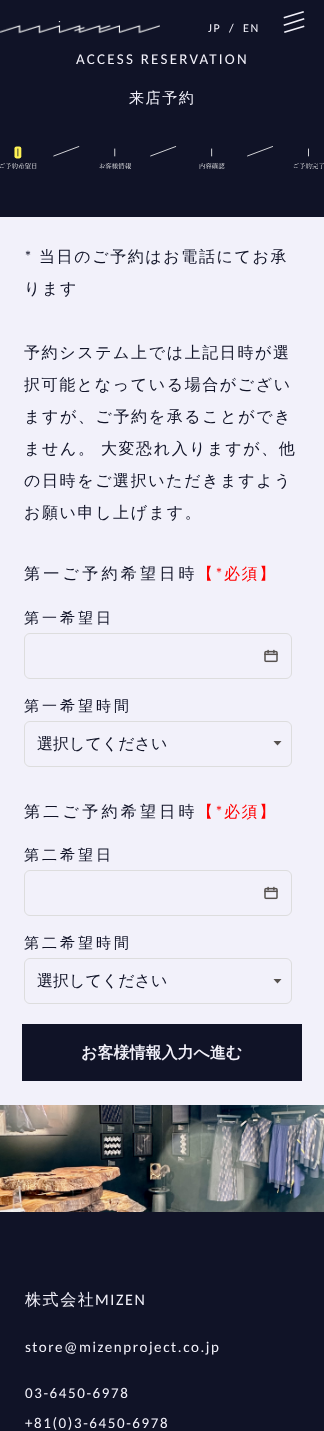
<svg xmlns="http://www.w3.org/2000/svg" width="324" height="1431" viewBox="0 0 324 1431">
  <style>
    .t1 { font: 12px Carlito; letter-spacing: 1.6px; fill: #f2f1fa; }
    .t2 { font: 15px Carlito; letter-spacing: 2.25px; fill: #f2f1fa; }
    .t3 { font: 500 15px WenQuanYi Zen Hei; letter-spacing: 1.6px; fill: #f2f1fa; }
    .t4 { font: 16px Carlito; letter-spacing: 1.6px; fill: #101327; }
    .t5 { font: 500 16px WenQuanYi Zen Hei; letter-spacing: 1.6px; fill: #101327; }
    .t6 { font: 500 16px WenQuanYi Zen Hei; letter-spacing: 3.25px; fill: #101327; }
    .t7 { font: 500 16px WenQuanYi Zen Hei; letter-spacing: 1.6px; fill: #f00; }
    .t8 { font: 16px Carlito; letter-spacing: 1.6px; fill: #f00; }
    .t9 { font: 500 15px WenQuanYi Zen Hei; letter-spacing: 3px; fill: #101327; }
    .t10 { font: 500 16px WenQuanYi Zen Hei; fill: #101327; }
    .t11 { font: bold 16px WenQuanYi Zen Hei; fill: #f2f1fa; }
    .t12 { font: 500 16px WenQuanYi Zen Hei; letter-spacing: 1.6px; fill: #f2f1fa; }
    .t13 { font: 16px Carlito; letter-spacing: 1.6px; fill: #f2f1fa; }
    .t14 { font: 15px Carlito; letter-spacing: 1.6px; fill: #f2f1fa; }
  </style>
  <rect width="100%" height="100%" fill="#101327"/>
  <image x="0" y="21" width="160" height="13" href="images/1.png"/>
  <text x="208" y="32" class="t1">JP</text>
  <text x="229" y="32" class="t1">/</text>
  <text x="243" y="32" class="t1">EN</text>
  <path d="M283.5 24.5L304 18L304.5 19.5L284 26Z" fill="#f2f1fa"/>
  <path d="M283.5 17L303.5 11L304 12.5L284 18.5ZM284 31.5L304 25.5L304.5 27L284.5 33Z" fill="#f2f1fa"/>
  <text x="76" y="64" class="t2">ACCESS RESERVATION</text>
  <text x="129" y="103" class="t3">来店予約</text>
  <image x="0" y="146" width="324" height="23" href="images/2.png"/>
  <rect x="0" y="217" width="324" height="888" fill="#f2f1fa"/>
  <text x="24" y="262" class="t4">*</text>
  <text x="39" y="262" class="t5">当日のご予約はお電話にてお承</text>
  <text x="24" y="294" class="t5">ります</text>
  <text x="24" y="358" class="t5">予約システム上では上記日時が選</text>
  <text x="24" y="390" class="t5">択可能となっている場合がござい</text>
  <text x="24" y="422" class="t5">ますが、ご予約を承ることができ</text>
  <text x="24" y="454" word-spacing="-1" class="t5">ません。 大変恐れ入りますが、他</text>
  <text x="24" y="486" class="t5">の日時をご選択いただきますよう</text>
  <text x="24" y="518" class="t5">お願い申し上げます。</text>
  <text x="24" y="579" class="t6">第一ご予約希望日時</text>
  <text x="197" y="579" class="t7">【</text>
  <text x="215" y="579" class="t8">*</text>
  <text x="224" y="579" class="t7">必須】</text>
  <text x="24" y="623" class="t9">第一希望日</text>
  <rect x="24.5" y="633.5" width="267" height="45" rx="5.5" fill="none" stroke="#ddd"/>
  <image x="264" y="649" width="14" height="14" href="images/3.png"/>
  <text x="24" y="711" class="t9">第一希望時間</text>
  <rect x="24.5" y="721.5" width="267" height="45" rx="5.5" fill="none" stroke="#ddd"/>
  <text x="37" y="749" class="t10">選択してください</text>
  <path d="M277.5 745.5L273.5 741H281.5Z" fill="#56514e"/>
  <text x="24" y="817" class="t6">第二ご予約希望日時</text>
  <text x="197" y="817" class="t7">【</text>
  <text x="215" y="817" class="t8">*</text>
  <text x="224" y="817" class="t7">必須】</text>
  <text x="24" y="860" class="t9">第二希望日</text>
  <rect x="24.5" y="870.5" width="267" height="45" rx="5.5" fill="none" stroke="#ddd"/>
  <image x="264" y="886" width="14" height="14" href="images/3.png"/>
  <text x="24" y="948" class="t9">第二希望時間</text>
  <rect x="24.5" y="958.5" width="267" height="45" rx="5.5" fill="none" stroke="#ddd"/>
  <text x="37" y="986" class="t10">選択してください</text>
  <path d="M277.5 983.5L273.5 979H281.5Z" fill="#56514e"/>
  <rect x="22" y="1024" width="280" height="57" fill="#101327"/>
  <text x="81" y="1058" class="t11">お客様情報入力へ進む</text>
  <image x="0" y="1105" width="324" height="107" href="images/4.png"/>
  <text x="25" y="1305" class="t12">株式会社</text>
  <text x="95" y="1305" class="t13">MIZEN</text>
  <text x="25" y="1352" class="t14">store@mizenproject.co.jp</text>
  <text x="25" y="1398" class="t14">03-6450-6978</text>
  <text x="25" y="1428" class="t14">+81(0)3-6450-6978</text>
</svg>
